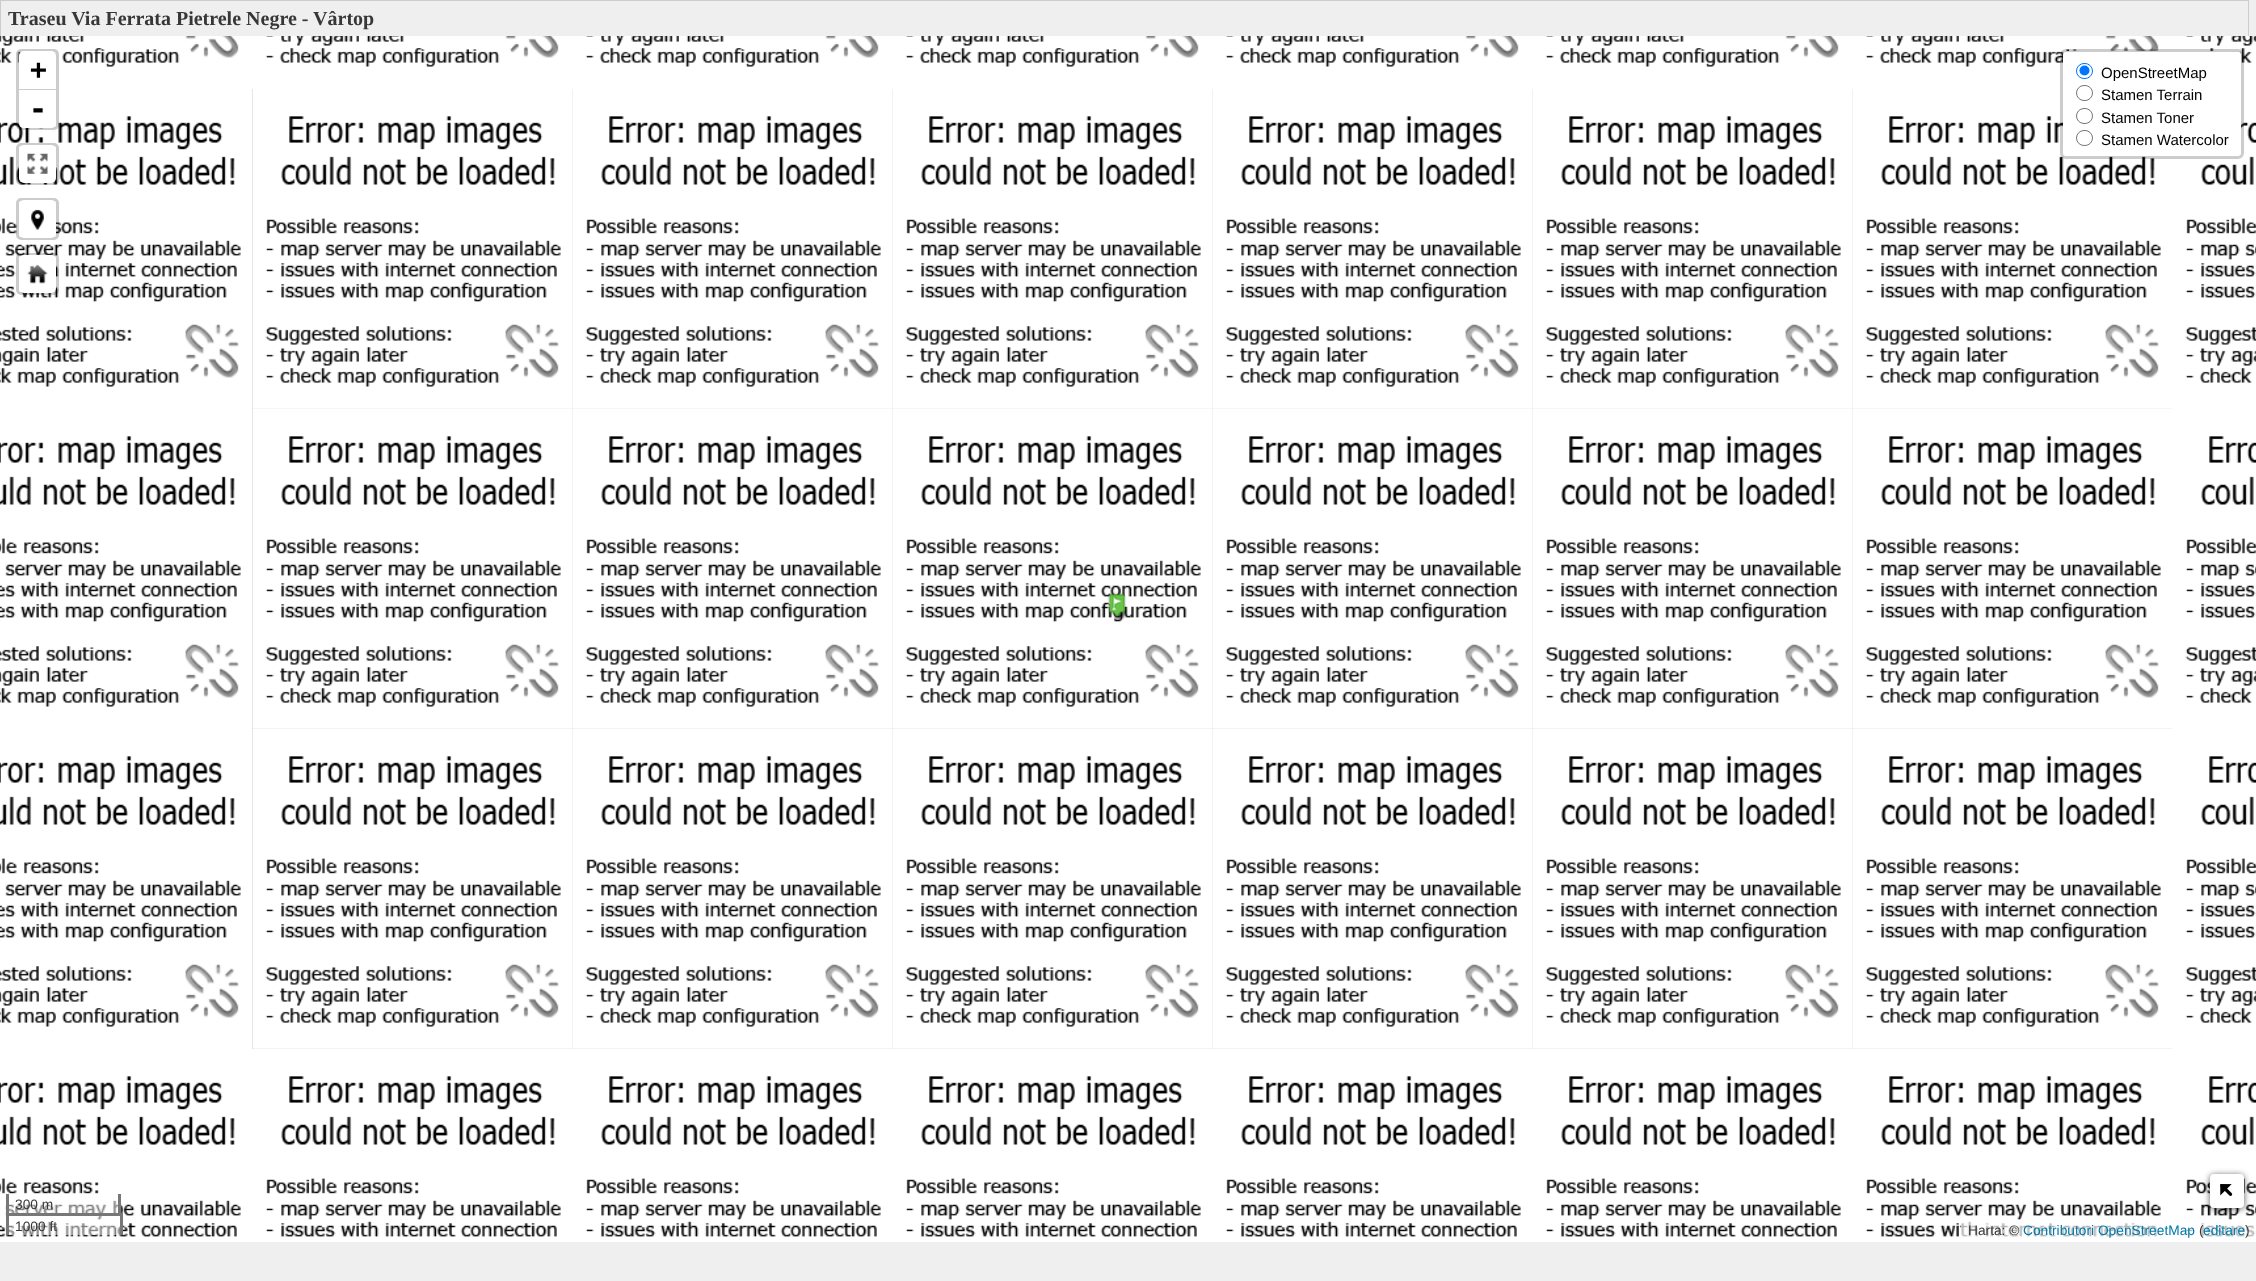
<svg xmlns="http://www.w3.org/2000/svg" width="2256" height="1281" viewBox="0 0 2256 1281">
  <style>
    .t1 { font: bold 20px Liberation Serif; fill: #373737; }
    .t2 { font: bold 28px DejaVu Sans Mono; fill: #000; }
    .t3 { font: bold 30px DejaVu Sans Mono; fill: #000; }
    .t4 { font: 15px Liberation Sans; fill: #000; }
    .t5 { font: 13.75px Liberation Sans; fill: #373737; }
    .t6 { font: 13.75px Liberation Sans; fill: #0078a8; }
  </style>
  <rect width="100%" height="100%" fill="#efefef"/>
  <rect x="0" y="0" width="2249" height="1" fill="#ccc"/>
  <rect x="2248" y="0" width="1" height="36" fill="#ccc"/>
  <rect x="0" y="0" width="1" height="36" fill="#ccc"/>
  <text x="8" y="25" class="t1">Traseu Via Ferrata Pietrele Negre - Vârtop</text>
  <rect x="252" y="89" width="1920" height="960" fill="#ccc"/>
  <image x="0" y="36" width="252" height="53" href="images/1.png"/>
  <image x="572" y="36" width="320" height="53" href="images/2.png"/>
  <image x="892" y="408" width="321" height="321" href="images/12.png"/>
  <image x="892" y="89" width="321" height="320" href="images/7.png"/>
  <image x="572" y="408" width="321" height="321" href="images/11.png"/>
  <image x="572" y="89" width="321" height="320" href="images/6.png"/>
  <image x="252" y="408" width="321" height="321" href="images/11.png"/>
  <image x="252" y="88" width="321" height="321" href="images/5.png"/>
  <image x="252" y="36" width="320" height="53" href="images/2.png"/>
  <image x="892" y="36" width="320" height="53" href="images/2.png"/>
  <image x="1212" y="36" width="320" height="53" href="images/2.png"/>
  <image x="1532" y="36" width="320" height="53" href="images/2.png"/>
  <image x="1852" y="36" width="320" height="53" href="images/2.png"/>
  <image x="2172" y="36" width="84" height="53" href="images/3.png"/>
  <image x="0" y="89" width="252" height="320" href="images/4.png"/>
  <image x="1212" y="408" width="321" height="321" href="images/13.png"/>
  <image x="1212" y="89" width="321" height="320" href="images/8.png"/>
  <image x="1532" y="408" width="321" height="321" href="images/13.png"/>
  <image x="1532" y="89" width="321" height="320" href="images/8.png"/>
  <image x="1852" y="408" width="320" height="321" href="images/14.png"/>
  <image x="1852" y="89" width="320" height="320" href="images/9.png"/>
  <image x="2172" y="89" width="84" height="320" href="images/10.png"/>
  <image x="0" y="409" width="252" height="320" href="images/4.png"/>
  <image x="2172" y="409" width="84" height="320" href="images/10.png"/>
  <image x="0" y="729" width="252" height="320" href="images/4.png"/>
  <image x="892" y="729" width="321" height="320" href="images/16.png"/>
  <image x="572" y="729" width="321" height="320" href="images/15.png"/>
  <image x="252" y="729" width="321" height="320" href="images/15.png"/>
  <image x="1212" y="729" width="321" height="320" href="images/17.png"/>
  <image x="1532" y="729" width="321" height="320" href="images/17.png"/>
  <image x="1852" y="729" width="320" height="320" href="images/18.png"/>
  <image x="2172" y="729" width="84" height="320" href="images/10.png"/>
  <image x="0" y="1049" width="252" height="193" href="images/19.png"/>
  <image x="252" y="1049" width="320" height="193" href="images/20.png"/>
  <image x="572" y="1049" width="320" height="193" href="images/20.png"/>
  <image x="892" y="1049" width="320" height="193" href="images/20.png"/>
  <image x="1212" y="1049" width="320" height="193" href="images/20.png"/>
  <image x="1532" y="1049" width="320" height="193" href="images/20.png"/>
  <image x="1852" y="1049" width="320" height="193" href="images/20.png"/>
  <image x="2172" y="1049" width="84" height="193" href="images/21.png"/>
  <image x="1113" y="607" width="15" height="14" href="images/23.png"/>
  <image x="1107" y="592" width="20" height="25" href="images/22.png"/>
  <rect x="17.5" y="50.5" width="40" height="78" rx="3.5" fill="none" stroke="#00000033" stroke-width="3"/>
  <path d="M24 51H51C54 51 56 53 56 56V90H19V56C19 53 21 51 24 51Z" fill="#fff"/>
  <rect x="19" y="89" width="37" height="1" fill="#ccc"/>
  <text x="30" y="79" class="t2">+</text>
  <path d="M19 90H56V123C56 126 54 128 51 128H24C21 128 19 126 19 123Z" fill="#fff"/>
  <text x="29" y="119" class="t3">-</text>
  <rect x="17.5" y="144.5" width="40" height="39" rx="3.5" fill="none" stroke="#00000033" stroke-width="3"/>
  <rect x="19" y="145" width="37" height="38" rx="5" fill="#fff"/>
  <image x="27" y="153" width="21" height="21" href="images/24.png"/>
  <rect x="17.5" y="199.5" width="40" height="39" rx="3.5" fill="none" stroke="#00000033" stroke-width="3"/>
  <rect x="19" y="200" width="37" height="38" rx="5" fill="#fff"/>
  <image x="31" y="209" width="13" height="21" href="images/25.png"/>
  <rect x="17.5" y="254.5" width="40" height="39" rx="3.5" fill="none" stroke="#00000033" stroke-width="3"/>
  <rect x="19" y="255" width="37" height="38" rx="5" fill="#fff"/>
  <image x="27" y="264" width="21" height="20" href="images/26.png"/>
  <rect x="2063" y="51" width="178" height="105" rx="4" fill="#fff"/>
  <rect x="2061.5" y="50.5" width="181" height="107" rx="4.5" fill="none" stroke="#00000033" stroke-width="3"/>
  <rect x="2076.5" y="63.5" width="16" height="15" rx="7.5" fill="none" stroke="#0075ff"/>
  <circle cx="2084.5" cy="70.5" r="5" fill="#0075ff"/>
  <text x="2101" y="78" class="t4">OpenStreetMap</text>
  <rect x="2076.5" y="85.5" width="16" height="15" rx="7.5" fill="none" stroke="#767676"/>
  <text x="2101" y="100" class="t4">Stamen Terrain</text>
  <rect x="2076.5" y="108.5" width="16" height="15" rx="7.5" fill="none" stroke="#767676"/>
  <text x="2101" y="123" class="t4">Stamen Toner</text>
  <rect x="2076.5" y="130.5" width="16" height="15" rx="7.5" fill="none" stroke="#767676"/>
  <text x="2101" y="145" class="t4">Stamen Watercolor</text>
  <rect x="9" y="1200" width="109" height="13" fill="#ffffff80"/>
  <rect x="118" y="1194" width="3" height="21" fill="#777"/>
  <rect x="6" y="1194" width="3" height="21" fill="#777"/>
  <text x="15" y="1209" class="t5">300 m</text>
  <rect x="9" y="1216" width="111" height="19" fill="#ffffff80"/>
  <rect x="6" y="1213" width="117" height="3" fill="#777"/>
  <rect x="120" y="1213" width="3" height="22" fill="#777"/>
  <rect x="6" y="1213" width="3" height="22" fill="#777"/>
  <text x="15" y="1231" class="t5">1000 ft</text>
  <rect x="2210" y="1175" width="34" height="34" rx="4" fill="#000000a6" filter="blur(3px)"/>
  <rect x="2212.5" y="1176.5" width="29" height="29" rx="1.5" fill="none" stroke="#fff" stroke-width="5"/>
  <rect x="2215" y="1179" width="24" height="24" fill="#fff"/>
  <image x="2220" y="1184" width="13" height="12" href="images/27.png"/>
  <rect x="1961" y="1221" width="295" height="16" fill="#ffffffb3"/>
  <text x="1968" y="1235" class="t5">Harta: ©</text>
  <text x="2023" y="1235" class="t6">Contributori OpenStreetMap</text>
  <text x="2199" y="1235" class="t5">(</text>
  <text x="2203" y="1235" class="t6">editare</text>
  <text x="2245" y="1235" class="t5">)</text>
</svg>
